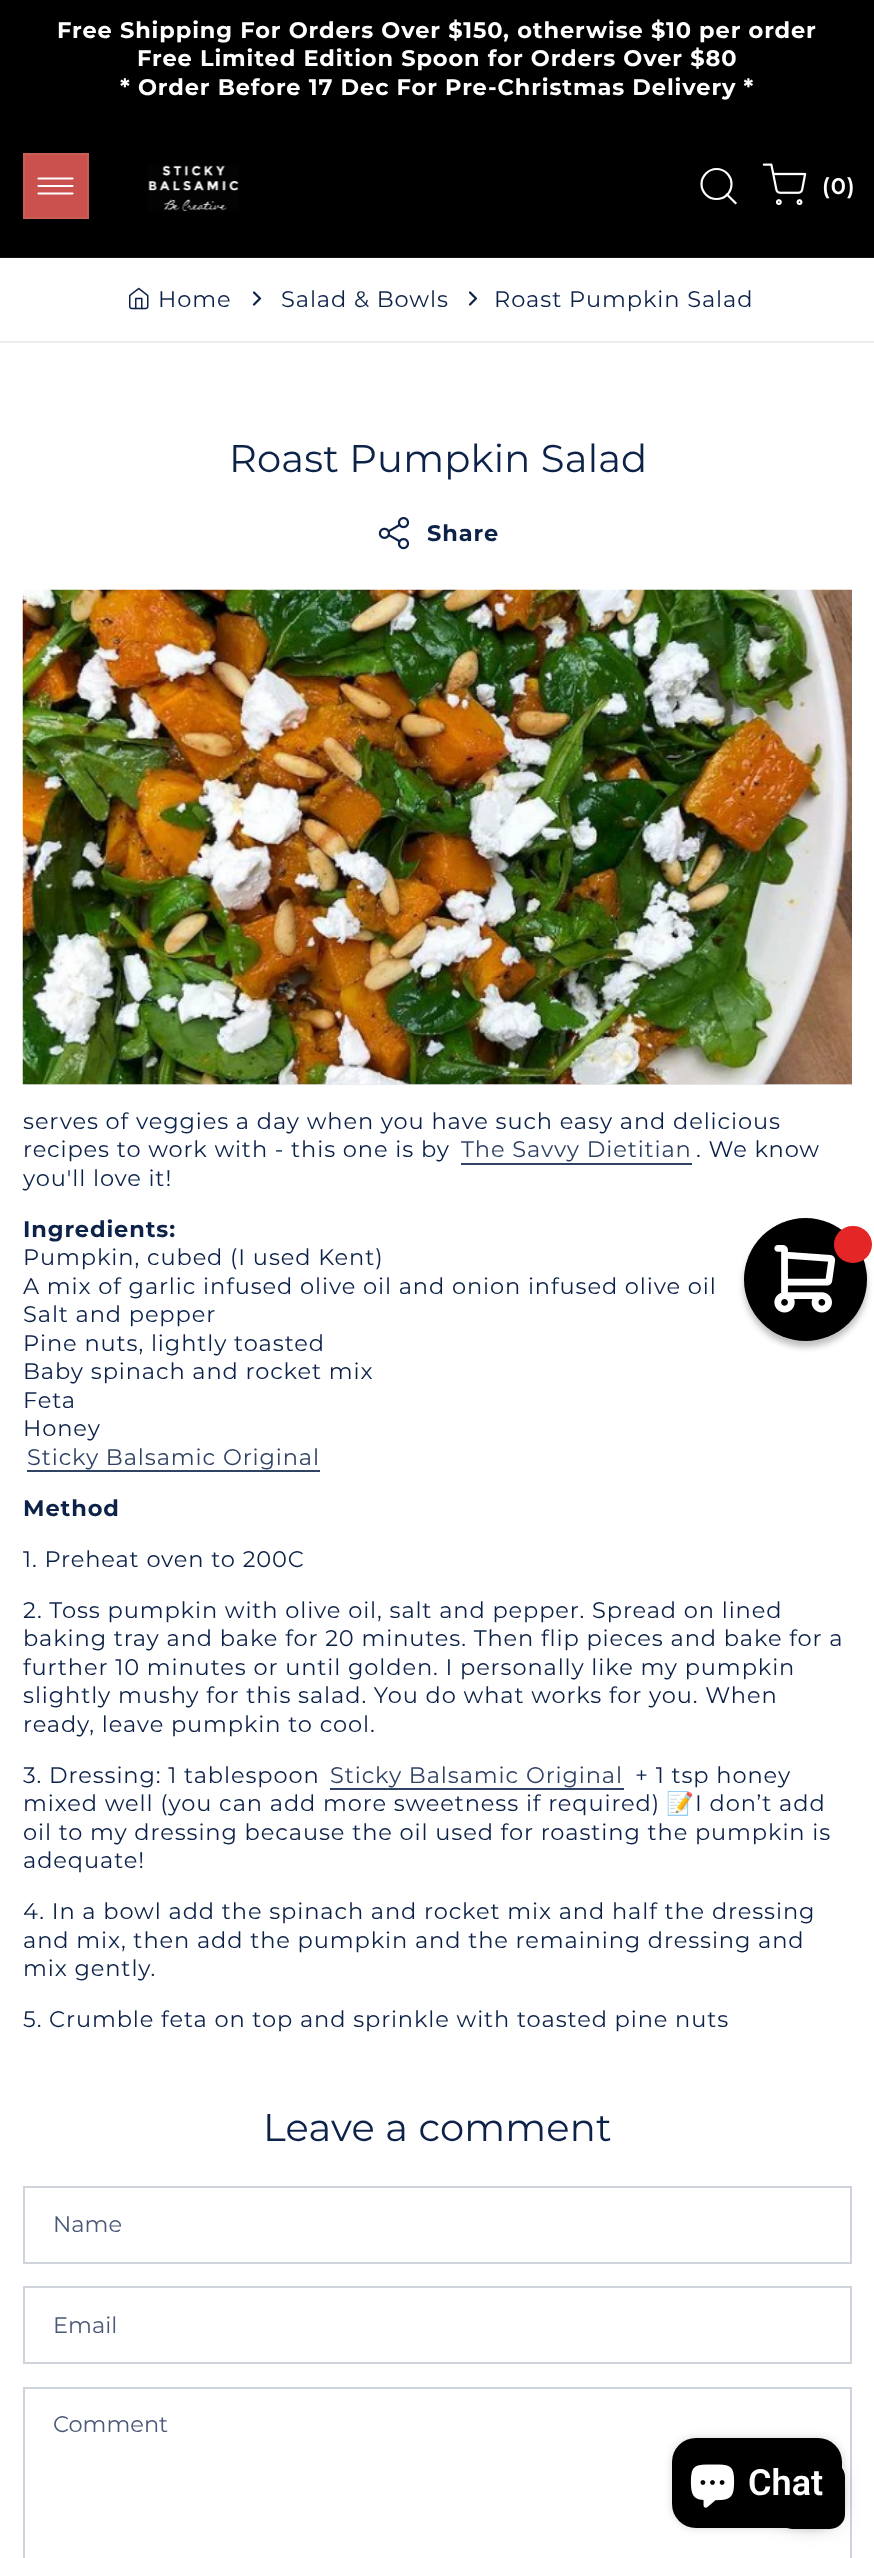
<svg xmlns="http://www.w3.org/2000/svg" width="874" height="2558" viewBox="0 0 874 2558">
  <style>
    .t1 { font: bold 22.5px Montserrat; letter-spacing: 0.9px; fill: #fff; }
    .t2 { font: 600 22.5px Montserrat; letter-spacing: 0.9px; fill: #fff; }
    .t3 { font: 22.5px Montserrat; letter-spacing: 0.9px; fill: #0d2249; }
    .t4 { font: 38.5px Montserrat; letter-spacing: 0.2px; fill: #0d2249; }
    .t5 { font: bold 22.5px Montserrat; letter-spacing: 0.9px; fill: #0d2249; }
    .t6 { font: 22.5px Montserrat; letter-spacing: 0.9px; fill: #314364; }
    .t7 { font: 22.5px Noto Color Emoji; letter-spacing: 0.9px; fill: #0d2249; }
    .t8 { font: 22.5px Montserrat; fill: #4a5977; }
    .t9 { font: 600 36px Roboto; fill: #fff; }
  </style>
  <rect width="100%" height="100%" fill="#fff"/>
  <rect x="0" y="0" width="874" height="257" fill="#000"/>
  <text x="57" y="38" class="t1">Free Shipping For Orders Over $150, otherwise $10 per order</text>
  <text x="137" y="66" class="t1">Free Limited Edition Spoon for Orders Over $80</text>
  <text x="120" y="95" class="t1">* Order Before 17 Dec For Pre-Christmas Delivery *</text>
  <rect x="0" y="257" width="874" height="1" fill="#141414"/>
  <rect x="24" y="154" width="64" height="64" fill="#ca514e" stroke="#c95e52" stroke-width="2"/>
  <path d="M72.5 186H38.5M72.5 178.5H38.5M72.5 193.5H38.5" fill="none" stroke="#fff" stroke-width="2.2" stroke-linecap="round" stroke-linejoin="round"/>
  <image x="148" y="165" width="91" height="46" href="images/1.png"/>
  <path d="M716.5 199C725 199 731.5 192.5 731.5 184C731.5 176 725 169 716.5 169C708.5 169 701.5 176 701.5 184C701.5 192.5 708.5 199 716.5 199Z" fill="none" stroke="#fff" stroke-width="2.2" stroke-linecap="round" stroke-linejoin="round"/>
  <path d="M735.5 203L727 194.5" fill="none" stroke="#fff" stroke-width="2.2" stroke-linecap="square" stroke-linejoin="round"/>
  <image x="762" y="163" width="45" height="43" href="images/2.png"/>
  <text x="822" y="194" class="t2">(0)</text>
  <rect x="0" y="341" width="874" height="2" fill="#ecedf0"/>
  <image x="129" y="287" width="20" height="23" href="images/3.png"/>
  <text x="158" y="307" class="t3">Home</text>
  <path d="M254 304.5L260 298.5L254 292.5" fill="none" stroke="#0d2249" stroke-width="2.2" stroke-linecap="round" stroke-linejoin="round"/>
  <text x="281" y="307" class="t3">Salad &amp; Bowls</text>
  <path d="M470 304.5L476 298.5L470 292.5" fill="none" stroke="#0d2249" stroke-width="2.2" stroke-linecap="round" stroke-linejoin="round"/>
  <text x="494" y="307" class="t3">Roast Pumpkin Salad</text>
  <text x="229" y="472" class="t4">Roast Pumpkin Salad</text>
  <image x="378" y="517" width="32" height="33" href="images/4.png"/>
  <text x="427" y="541" class="t5">Share</text>
  <rect x="23" y="1084" width="829" height="1" fill="#e8eaee"/>
  <image x="22" y="589" width="830" height="496" href="images/5.png"/>
  <text x="23" y="1129" class="t3">serves of veggies a day when you have such easy and delicious</text>
  <text x="23" y="1157" class="t3">recipes to work with - this one is by</text>
  <text x="461" y="1157" class="t6">The Savvy Dietitian</text>
  <rect x="461" y="1163" width="231" height="2" fill="#314364"/>
  <text x="696" y="1157" class="t3">. We know</text>
  <text x="23" y="1186" class="t3">you'll love it!</text>
  <text x="23" y="1237" class="t5">Ingredients:</text>
  <text x="23" y="1265" class="t3">Pumpkin, cubed (I used Kent)</text>
  <text x="23" y="1294" class="t3">A mix of garlic infused olive oil and onion infused olive oil</text>
  <text x="23" y="1322" class="t3">Salt and pepper</text>
  <text x="23" y="1351" class="t3">Pine nuts, lightly toasted</text>
  <text x="23" y="1379" class="t3">Baby spinach and rocket mix</text>
  <text x="23" y="1408" class="t3">Feta</text>
  <text x="23" y="1436" class="t3">Honey</text>
  <text x="27" y="1465" class="t6">Sticky Balsamic Original</text>
  <rect x="27" y="1470" width="293" height="2" fill="#314364"/>
  <text x="23" y="1516" class="t5">Method</text>
  <text x="23" y="1567" class="t3">1. Preheat oven to 200C</text>
  <text x="23" y="1618" class="t3">2. Toss pumpkin with olive oil, salt and pepper. Spread on lined</text>
  <text x="23" y="1646" class="t3">baking tray and bake for 20 minutes. Then flip pieces and bake for a</text>
  <text x="23" y="1675" class="t3">further 10 minutes or until golden. I personally like my pumpkin</text>
  <text x="23" y="1703" class="t3">slightly mushy for this salad. You do what works for you. When</text>
  <text x="23" y="1732" class="t3">ready, leave pumpkin to cool.</text>
  <text x="23" y="1783" class="t3">3. Dressing: 1 tablespoon</text>
  <text x="330" y="1783" class="t6">Sticky Balsamic Original</text>
  <rect x="330" y="1788" width="294" height="2" fill="#314364"/>
  <text x="635" y="1783" class="t3">+ 1 tsp honey</text>
  <text x="23" y="1811" class="t3">mixed well (you can add more sweetness if required)</text>
  <text x="666" y="1811" class="t7">📝</text>
  <text x="695" y="1811" class="t3">I don’t add</text>
  <text x="23" y="1840" class="t3">oil to my dressing because the oil used for roasting the pumpkin is</text>
  <text x="23" y="1868" class="t3">adequate!</text>
  <text x="23" y="1919" class="t3">4. In a bowl add the spinach and rocket mix and half the dressing</text>
  <text x="23" y="1948" class="t3">and mix, then add the pumpkin and the remaining dressing and</text>
  <text x="23" y="1976" class="t3">mix gently.</text>
  <text x="23" y="2027" class="t3">5. Crumble feta on top and sprinkle with toasted pine nuts</text>
  <text x="263" y="2141" class="t4">Leave a comment</text>
  <rect x="24" y="2187" width="827" height="76" fill="none" stroke="#cfd3db" stroke-width="2"/>
  <text x="53" y="2232" class="t8">Name</text>
  <rect x="24" y="2287" width="827" height="76" fill="none" stroke="#cfd3db" stroke-width="2"/>
  <text x="53" y="2333" class="t8">Email</text>
  <rect x="24" y="2388" width="827" height="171" fill="none" stroke="#cfd3db" stroke-width="2"/>
  <text x="53" y="2432" class="t8">Comment</text>
  <rect x="744" y="1224" width="123" height="123" rx="61.5" fill="#00000040" filter="blur(3px)"/>
  <circle cx="805.5" cy="1279.5" r="61.5" fill="#000"/>
  <rect x="834" y="1226" width="38" height="37" rx="18.5" fill="#e42626"/>
  <image x="774" y="1245" width="62" height="68" href="images/6.png"/>
  <rect x="791" y="2475" width="40" height="41" rx="1.5" fill="#5a5a5a" filter="blur(13.5px)"/>
  <rect x="777" y="2462" width="68" height="67" rx="15" fill="#000"/>
  <rect x="672" y="2438" width="170" height="90" rx="24" fill="#00000026" filter="blur(4px)"/>
  <rect x="672" y="2438" width="170" height="90" rx="24" fill="#000"/>
  <image x="690" y="2464" width="45" height="44" href="images/7.png"/>
  <text x="748" y="2495" class="t9">Chat</text>
</svg>
